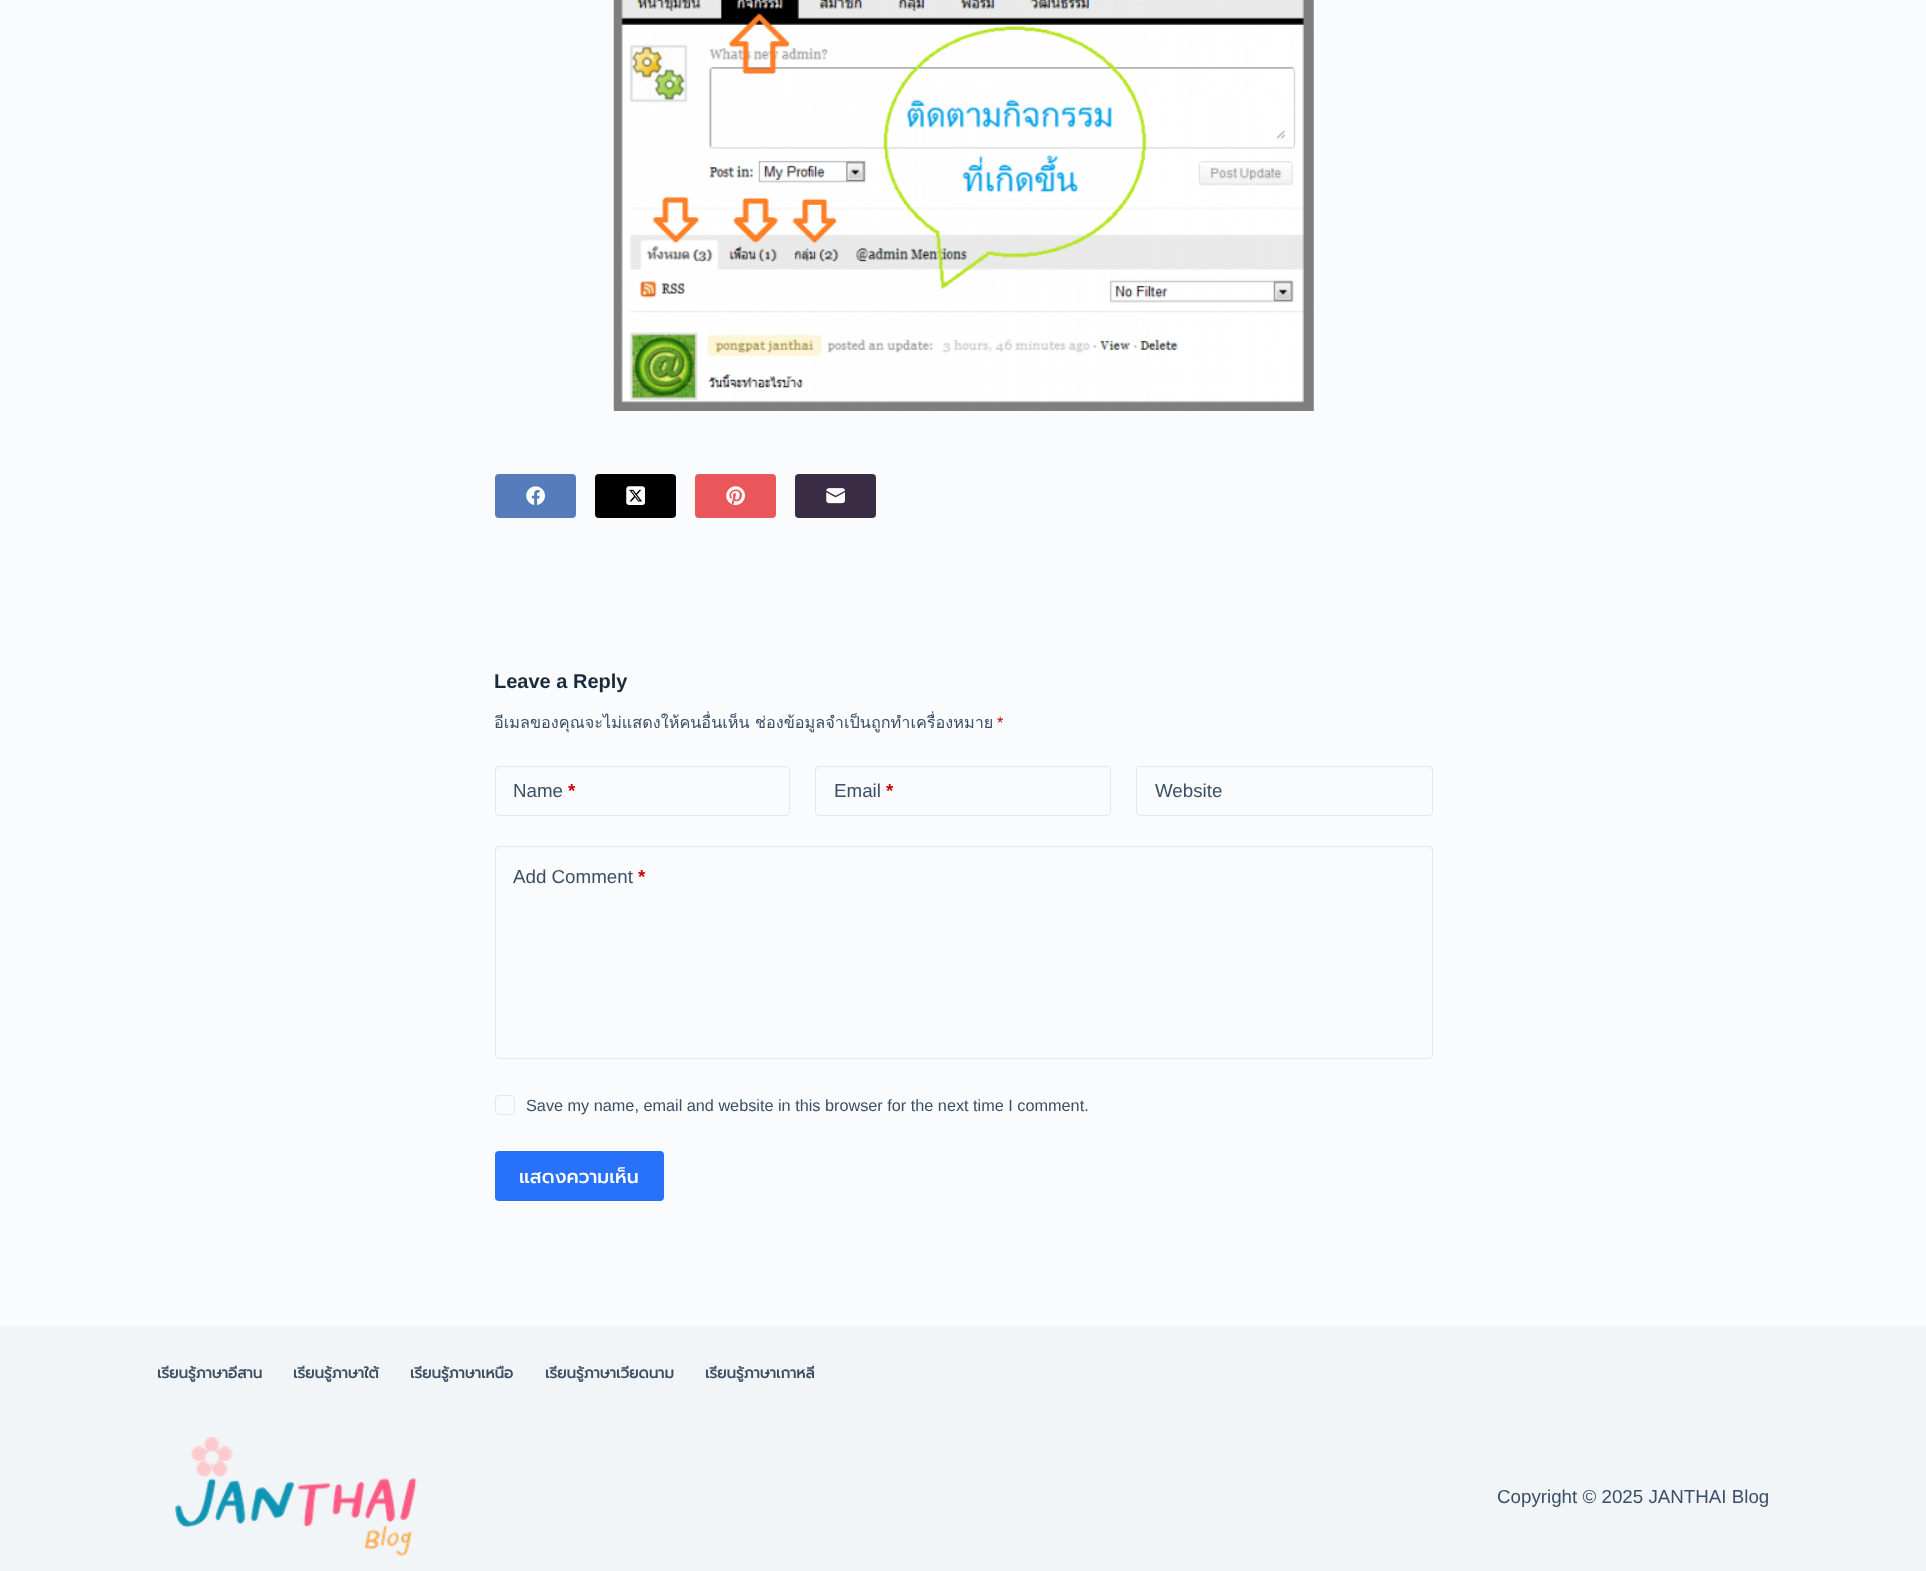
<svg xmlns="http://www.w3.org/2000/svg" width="1926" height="1571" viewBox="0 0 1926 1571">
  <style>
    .t1 { font: bold 20px Liberation Sans; fill: #192a3d; }
    .t2 { font: 16.25px Loma; fill: #3a4f66; }
    .t3 { font: 16.25px Liberation Sans; fill: #c00; }
    .t4 { font: 18.75px Liberation Sans; fill: #3a4f66; }
    .t5 { font: bold 18.75px Liberation Sans; fill: #c00; }
    .t6 { font: 16.25px Liberation Sans; fill: #3a4f66; }
    .t7 { font: 500 18.75px Prompt; fill: #fff; }
    .t8 { font: bold 15px Prompt; fill: #3a4f66; }
  </style>
  <rect width="100%" height="100%" fill="#fafbfc"/>
  <image x="613" y="0" width="701" height="411" href="images/1.png"/>
  <rect x="495" y="474" width="81" height="44" rx="4" fill="#557dbc"/>
  <image x="526" y="486" width="19" height="19" href="images/2.png"/>
  <rect x="595" y="474" width="81" height="44" rx="4" fill="#000"/>
  <image x="626" y="486" width="19" height="19" href="images/3.png"/>
  <rect x="695" y="474" width="81" height="44" rx="4" fill="#ea575a"/>
  <image x="726" y="486" width="19" height="19" href="images/4.png"/>
  <rect x="795" y="474" width="81" height="44" rx="4" fill="#392c44"/>
  <image x="826" y="488" width="19" height="16" href="images/5.png"/>
  <text x="494" y="688" class="t1">Leave a Reply</text>
  <text x="494" y="728" class="t2">อีเมลของคุณจะไม่แสดงให้คนอื่นเห็น</text>
  <text x="755" y="728" class="t2">ช่องข้อมูลจำเป็นถูกทำเครื่องหมาย</text>
  <text x="997" y="728" class="t3">*</text>
  <rect x="495.5" y="766.5" width="294" height="49" rx="3.5" fill="none" stroke="#e1e8ed"/>
  <text x="513" y="797" class="t4">Name</text>
  <text x="568" y="797" class="t5">*</text>
  <rect x="815.5" y="766.5" width="295" height="49" rx="3.5" fill="none" stroke="#e1e8ed"/>
  <text x="834" y="797" class="t4">Email</text>
  <text x="886" y="797" class="t5">*</text>
  <rect x="1136.5" y="766.5" width="296" height="49" rx="3.5" fill="none" stroke="#e1e8ed"/>
  <text x="1155" y="797" class="t4">Website</text>
  <rect x="495.5" y="846.5" width="937" height="212" rx="3.5" fill="none" stroke="#e1e8ed"/>
  <text x="513" y="883" class="t4">Add Comment</text>
  <text x="638" y="883" class="t5">*</text>
  <rect x="495.5" y="1095.5" width="19" height="19" rx="3.5" fill="none" stroke="#e1e8ed"/>
  <text x="526" y="1111" class="t6">Save my name, email and website in this browser for the next time I comment.</text>
  <rect x="495" y="1151" width="169" height="50" rx="4" fill="#2872fa"/>
  <text x="519" y="1183" class="t7">แสดงความเห็น</text>
  <rect x="0" y="1326" width="1926" height="245" fill="#f2f5f7"/>
  <text x="157" y="1378" class="t8">เรียนรู้ภาษาอีสาน</text>
  <text x="293" y="1378" class="t8">เรียนรู้ภาษาใต้</text>
  <text x="410" y="1378" class="t8">เรียนรู้ภาษาเหนือ</text>
  <text x="545" y="1378" class="t8">เรียนรู้ภาษาเวียดนาม</text>
  <text x="705" y="1378" class="t8">เรียนรู้ภาษาเกาหลี</text>
  <image x="174" y="1436" width="243" height="121" href="images/6.png"/>
  <text x="1497" y="1503" class="t4">Copyright © 2025 JANTHAI Blog</text>
</svg>
